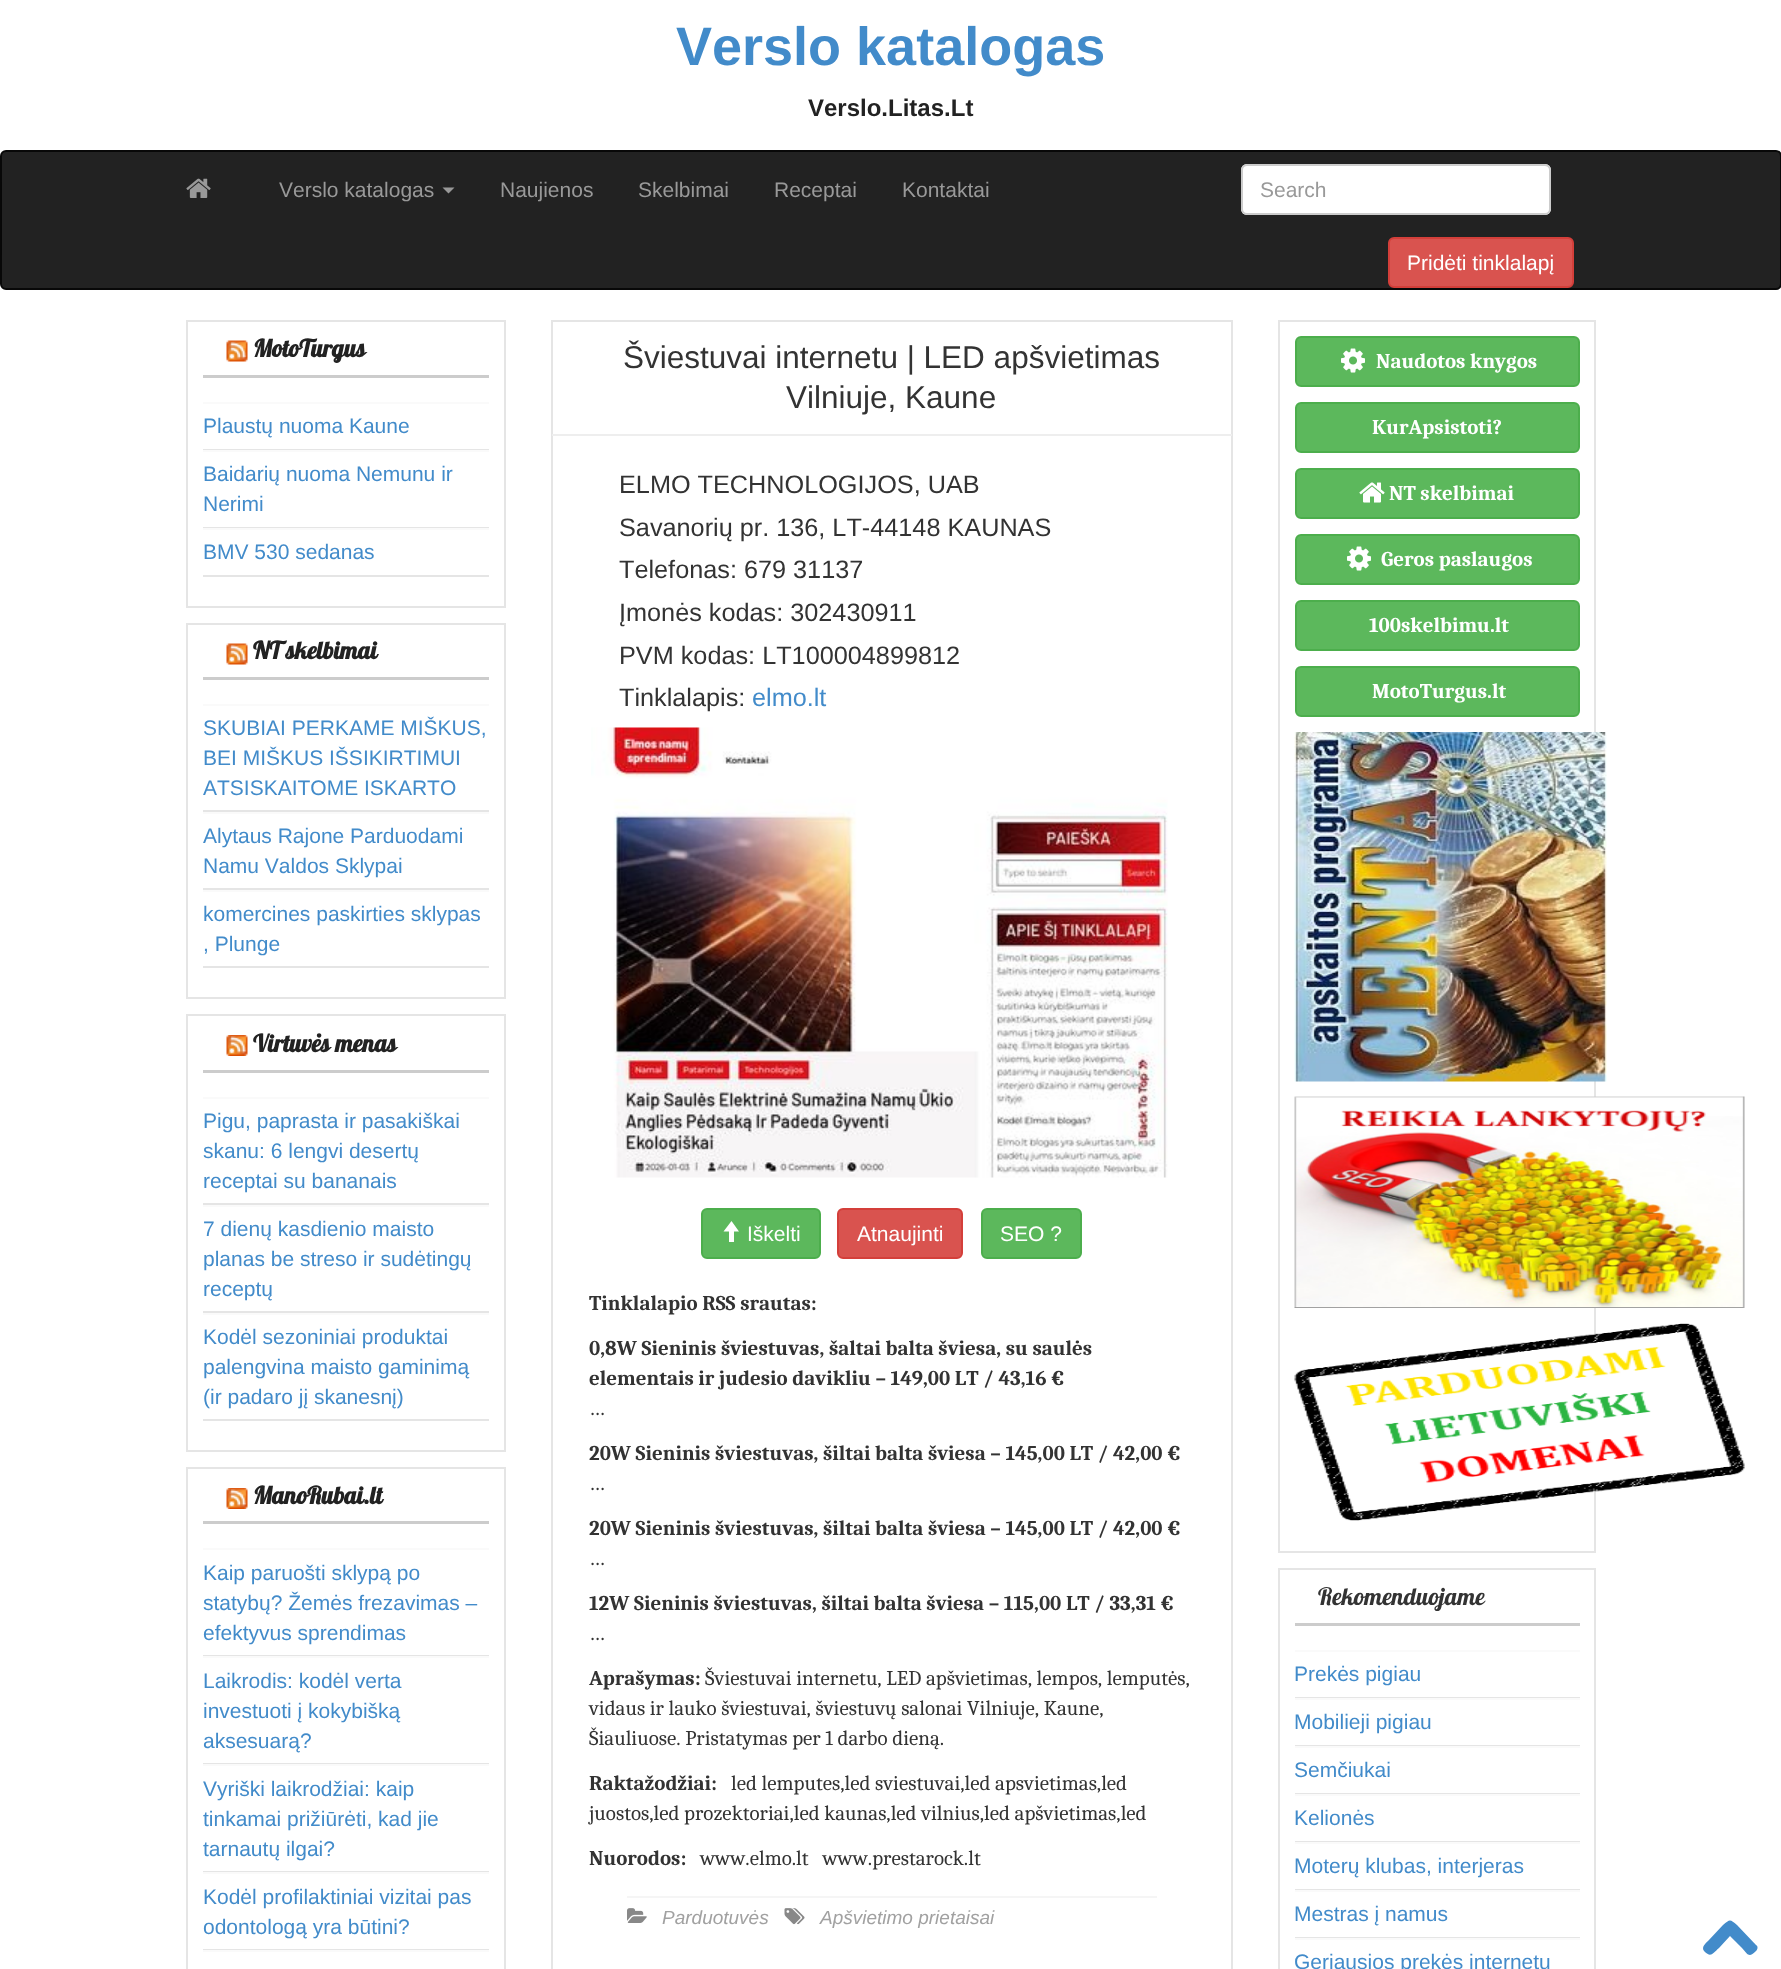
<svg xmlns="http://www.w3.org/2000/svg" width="1781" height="1969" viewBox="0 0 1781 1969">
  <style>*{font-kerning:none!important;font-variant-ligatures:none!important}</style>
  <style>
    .t1 { font: bold 54px Liberation Sans; fill: #428bca; }
    .t2 { font: bold 24px Liberation Sans; fill: #222; }
    .t3 { font: 21px Liberation Sans; fill: #999; }
    .t4 { font: 21px Liberation Sans; fill: #fff; }
    .t5 { font: bold 24px Lobster; fill: #222; }
    .t6 { font: 21px Liberation Sans; fill: #428bca; }
    .t7 { font: 31.5px Liberation Sans; fill: #333; }
    .t8 { font: 25.25px Liberation Sans; fill: #333; }
    .t9 { font: 25.25px Liberation Sans; fill: #428bca; }
    .t10 { font: bold 21px Caladea; fill: #333; }
    .t11 { font: 21px Caladea; fill: #333; }
    .t12 { font: italic 19px Liberation Sans; fill: #a1a1a1; }
    .t13 { font: bold 21px Caladea; fill: #fff; }
    .t14 { font: 24px Lobster; fill: #333; }
  </style>
  <rect width="100%" height="100%" fill="#fff"/>
  <text x="676" y="65" class="t1">Verslo katalogas</text>
  <text x="808" y="116" class="t2">Verslo.Litas.Lt</text>
  <rect x="1" y="151" width="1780" height="138" rx="5" fill="#222" stroke="#080808" stroke-width="2"/>
  <image x="186" y="178" width="25" height="20" href="images/1.png"/>
  <text x="279" y="197" class="t3">Verslo katalogas</text>
  <path d="M442.5 187.5H454.5L448.5 193.5Z" fill="#999"/>
  <text x="500" y="197" class="t3">Naujienos</text>
  <text x="638" y="197" class="t3">Skelbimai</text>
  <text x="774" y="197" class="t3">Receptai</text>
  <text x="902" y="197" class="t3">Kontaktai</text>
  <rect x="1241" y="164" width="310" height="51" rx="6" fill="#fff"/>
  <path d="M1246 166H1545C1547 166 1550 169 1550 171C1550 168 1548 165 1545 165H1247C1244 165 1242 168 1242 171C1242 169 1244 166 1246 166Z" fill="#ececec"/>
  <rect x="1242" y="165" width="308" height="49" rx="5" fill="none" stroke="#ccc" stroke-width="2"/>
  <text x="1260" y="197" class="t3">Search</text>
  <rect x="1389" y="238" width="184" height="49" rx="5" fill="#d9534f" stroke="#d43f3a" stroke-width="2"/>
  <text x="1407" y="270" class="t4">Pridėti tinklalapį</text>
  <rect x="187" y="321" width="318" height="286" fill="none" stroke="#e5e5e5" stroke-width="2"/>
  <rect x="203" y="375" width="286" height="3" fill="#ccc"/>
  <image x="226" y="340" width="22" height="22" href="images/2.png"/>
  <text x="253" y="357" class="t5">MotoTurgus</text>
  <rect x="203" y="402" width="286" height="2" fill="#fafafa"/>
  <rect x="203" y="449" width="286" height="1" fill="#e5e5e5"/>
  <text x="203" y="433" class="t6">Plaustų nuoma Kaune</text>
  <rect x="203" y="450" width="286" height="2" fill="#fafafa"/>
  <rect x="203" y="527" width="286" height="1" fill="#e5e5e5"/>
  <text x="203" y="481" class="t6">Baidarių nuoma Nemunu ir</text>
  <text x="203" y="511" class="t6">Nerimi</text>
  <rect x="203" y="528" width="286" height="2" fill="#fafafa"/>
  <rect x="203" y="575" width="286" height="2" fill="#e5e5e5"/>
  <text x="203" y="559" class="t6">BMV 530 sedanas</text>
  <rect x="187" y="624" width="318" height="374" fill="none" stroke="#e5e5e5" stroke-width="2"/>
  <rect x="203" y="677" width="286" height="3" fill="#ccc"/>
  <image x="226" y="643" width="22" height="22" href="images/2.png"/>
  <text x="253" y="659" class="t5">NT skelbimai</text>
  <rect x="203" y="704" width="286" height="2" fill="#fafafa"/>
  <rect x="203" y="810" width="286" height="2" fill="#e5e5e5"/>
  <text x="203" y="735" class="t6">SKUBIAI PERKAME MIŠKUS,</text>
  <text x="203" y="765" class="t6">BEI MIŠKUS IŠSIKIRTIMUI</text>
  <text x="203" y="795" class="t6">ATSISKAITOME ISKARTO</text>
  <rect x="203" y="812" width="286" height="2" fill="#fafafa"/>
  <rect x="203" y="888" width="286" height="2" fill="#e5e5e5"/>
  <text x="203" y="843" class="t6">Alytaus Rajone Parduodami</text>
  <text x="203" y="873" class="t6">Namu Valdos Sklypai</text>
  <rect x="203" y="890" width="286" height="2" fill="#fafafa"/>
  <rect x="203" y="966" width="286" height="2" fill="#e5e5e5"/>
  <text x="203" y="921" class="t6">komercines paskirties sklypas</text>
  <text x="203" y="951" class="t6">, Plunge</text>
  <rect x="187" y="1015" width="318" height="436" fill="none" stroke="#e5e5e5" stroke-width="2"/>
  <rect x="203" y="1070" width="286" height="3" fill="#ccc"/>
  <image x="226" y="1035" width="22" height="21" href="images/3.png"/>
  <text x="253" y="1052" class="t5">Virtuvės menas</text>
  <rect x="203" y="1097" width="286" height="2" fill="#fafafa"/>
  <rect x="203" y="1203" width="286" height="2" fill="#e5e5e5"/>
  <text x="203" y="1128" class="t6">Pigu, paprasta ir pasakiškai</text>
  <text x="203" y="1158" class="t6">skanu: 6 lengvi desertų</text>
  <text x="203" y="1188" class="t6">receptai su bananais</text>
  <rect x="203" y="1205" width="286" height="2" fill="#fafafa"/>
  <rect x="203" y="1311" width="286" height="2" fill="#e5e5e5"/>
  <text x="203" y="1236" class="t6">7 dienų kasdienio maisto</text>
  <text x="203" y="1266" class="t6">planas be streso ir sudėtingų</text>
  <text x="203" y="1296" class="t6">receptų</text>
  <rect x="203" y="1313" width="286" height="2" fill="#fafafa"/>
  <rect x="203" y="1419" width="286" height="2" fill="#e5e5e5"/>
  <text x="203" y="1344" class="t6">Kodėl sezoniniai produktai</text>
  <text x="203" y="1374" class="t6">palengvina maisto gaminimą</text>
  <text x="203" y="1404" class="t6">(ir padaro jį skanesnį)</text>
  <rect x="187" y="1468" width="318" height="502" fill="none" stroke="#e5e5e5" stroke-width="2"/>
  <rect x="203" y="1521" width="286" height="3" fill="#ccc"/>
  <image x="226" y="1488" width="22" height="21" href="images/3.png"/>
  <text x="253" y="1504" class="t5">ManoRubai.lt</text>
  <rect x="203" y="1548" width="286" height="2" fill="#fafafa"/>
  <rect x="203" y="1655" width="286" height="1" fill="#e5e5e5"/>
  <text x="203" y="1580" class="t6">Kaip paruošti sklypą po</text>
  <text x="203" y="1610" class="t6">statybų? Žemės frezavimas –</text>
  <text x="203" y="1640" class="t6">efektyvus sprendimas</text>
  <rect x="203" y="1656" width="286" height="2" fill="#fafafa"/>
  <rect x="203" y="1763" width="286" height="1" fill="#e5e5e5"/>
  <text x="203" y="1688" class="t6">Laikrodis: kodėl verta</text>
  <text x="203" y="1718" class="t6">investuoti į kokybišką</text>
  <text x="203" y="1748" class="t6">aksesuarą?</text>
  <rect x="203" y="1764" width="286" height="2" fill="#fafafa"/>
  <rect x="203" y="1871" width="286" height="1" fill="#e5e5e5"/>
  <text x="203" y="1796" class="t6">Vyriški laikrodžiai: kaip</text>
  <text x="203" y="1826" class="t6">tinkamai prižiūrėti, kad jie</text>
  <text x="203" y="1856" class="t6">tarnautų ilgai?</text>
  <rect x="203" y="1872" width="286" height="2" fill="#fafafa"/>
  <rect x="203" y="1949" width="286" height="1" fill="#e5e5e5"/>
  <text x="203" y="1904" class="t6">Kodėl profilaktiniai vizitai pas</text>
  <text x="203" y="1934" class="t6">odontologą yra būtini?</text>
  <rect x="203" y="1950" width="286" height="2" fill="#fafafa"/>
  <rect x="552" y="321" width="680" height="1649" fill="none" stroke="#e5e5e5" stroke-width="2"/>
  <rect x="552" y="434" width="680" height="2" fill="#eee"/>
  <text x="623" y="368" class="t7">Šviestuvai internetu | LED apšvietimas</text>
  <text x="786" y="408" class="t7">Vilniuje, Kaune</text>
  <text x="619" y="493" class="t8">ELMO TECHNOLOGIJOS, UAB</text>
  <text x="619" y="536" class="t8">Savanorių pr. 136, LT-44148 KAUNAS</text>
  <text x="619" y="578" class="t8">Telefonas: 679 31137</text>
  <text x="619" y="621" class="t8">Įmonės kodas: 302430911</text>
  <text x="619" y="664" class="t8">PVM kodas: LT100004899812</text>
  <text x="619" y="706" class="t8">Tinklalapis:</text>
  <text x="752" y="706" class="t9">elmo.lt</text>
  <image x="591" y="727" width="577" height="451" href="images/4.png"/>
  <rect x="702" y="1209" width="118" height="49" rx="5" fill="#5cb85c" stroke="#4cae4c" stroke-width="2"/>
  <path d="M723.5 1231.5L731.5 1221L739 1231.5H734V1242H729V1231.5Z" fill="#fff"/>
  <text x="747" y="1241" class="t4">Iškelti</text>
  <rect x="838" y="1209" width="124" height="49" rx="5" fill="#d9534f" stroke="#d43f3a" stroke-width="2"/>
  <text x="857" y="1241" class="t4">Atnaujinti</text>
  <rect x="982" y="1209" width="99" height="49" rx="5" fill="#5cb85c" stroke="#4cae4c" stroke-width="2"/>
  <text x="1000" y="1241" class="t4">SEO ?</text>
  <text x="589" y="1310" class="t10">Tinklalapio RSS srautas:</text>
  <text x="589" y="1355" class="t10">0,8W Sieninis šviestuvas, šaltai balta šviesa, su saulės</text>
  <text x="589" y="1385" class="t10">elementais ir judesio davikliu – 149,00 LT / 43,16 €</text>
  <text x="589" y="1415" class="t11">…</text>
  <text x="589" y="1460" class="t10">20W Sieninis šviestuvas, šiltai balta šviesa – 145,00 LT / 42,00 €</text>
  <text x="589" y="1490" class="t11">…</text>
  <text x="589" y="1535" class="t10">20W Sieninis šviestuvas, šiltai balta šviesa – 145,00 LT / 42,00 €</text>
  <text x="589" y="1565" class="t11">…</text>
  <text x="589" y="1610" class="t10">12W Sieninis šviestuvas, šiltai balta šviesa – 115,00 LT / 33,31 €</text>
  <text x="589" y="1640" class="t11">…</text>
  <text x="589" y="1685" class="t10">Aprašymas:</text>
  <text x="705" y="1685" class="t11">Šviestuvai internetu, LED apšvietimas, lempos, lemputės,</text>
  <text x="589" y="1715" class="t11">vidaus ir lauko šviestuvai, šviestuvų salonai Vilniuje, Kaune,</text>
  <text x="589" y="1745" class="t11">Šiauliuose. Pristatymas per 1 darbo dieną.</text>
  <text x="589" y="1790" class="t10">Raktažodžiai:</text>
  <text x="731" y="1790" class="t11">led lemputes,led sviestuvai,led apsvietimas,led</text>
  <text x="589" y="1820" class="t11">juostos,led prozektoriai,led kaunas,led vilnius,led apšvietimas,led</text>
  <text x="589" y="1865" class="t10">Nuorodos:</text>
  <text x="700" y="1865" class="t11" xml:space="preserve">www.elmo.lt   www.prestarock.lt</text>
  <rect x="627" y="1896" width="530" height="2" fill="#f5f5f5"/>
  <image x="627" y="1908" width="20" height="15" href="images/5.png"/>
  <text x="662" y="1924" class="t12">Parduotuvės</text>
  <image x="784" y="1908" width="21" height="17" href="images/6.png"/>
  <text x="820" y="1924" class="t12">Apšvietimo prietaisai</text>
  <rect x="1279" y="321" width="316" height="1231" fill="none" stroke="#e5e5e5" stroke-width="2"/>
  <rect x="1296" y="337" width="283" height="49" rx="5" fill="#5cb85c" stroke="#4cae4c" stroke-width="2"/>
  <image x="1341" y="348" width="24" height="25" href="images/7.png"/>
  <text x="1376" y="368" class="t13">Naudotos knygos</text>
  <rect x="1296" y="403" width="283" height="49" rx="5" fill="#5cb85c" stroke="#4cae4c" stroke-width="2"/>
  <text x="1372" y="434" class="t13">KurApsistoti?</text>
  <rect x="1296" y="469" width="283" height="49" rx="5" fill="#5cb85c" stroke="#4cae4c" stroke-width="2"/>
  <image x="1359" y="482" width="26" height="21" href="images/8.png"/>
  <text x="1389" y="500" class="t13">NT skelbimai</text>
  <rect x="1296" y="535" width="283" height="49" rx="5" fill="#5cb85c" stroke="#4cae4c" stroke-width="2"/>
  <image x="1347" y="546" width="24" height="25" href="images/7.png"/>
  <text x="1381" y="566" class="t13">Geros paslaugos</text>
  <rect x="1296" y="601" width="283" height="49" rx="5" fill="#5cb85c" stroke="#4cae4c" stroke-width="2"/>
  <text x="1369" y="632" class="t13">100skelbimu.lt</text>
  <rect x="1296" y="667" width="283" height="49" rx="5" fill="#5cb85c" stroke="#4cae4c" stroke-width="2"/>
  <text x="1372" y="698" class="t13">MotoTurgus.lt</text>
  <image x="1294" y="732" width="313" height="350" href="images/9.png"/>
  <image x="1294" y="1096" width="451" height="212" href="images/10.png"/>
  <image x="1294" y="1323" width="451" height="198" href="images/11.png"/>
  <rect x="1279" y="1569" width="316" height="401" fill="none" stroke="#e5e5e5" stroke-width="2"/>
  <rect x="1295" y="1623" width="285" height="3" fill="#ccc"/>
  <text x="1318" y="1605" class="t14">Rekomenduojame</text>
  <rect x="1295" y="1650" width="285" height="2" fill="#fafafa"/>
  <rect x="1295" y="1697" width="285" height="1" fill="#e5e5e5"/>
  <text x="1294" y="1681" class="t6">Prekės pigiau</text>
  <rect x="1295" y="1698" width="285" height="2" fill="#fafafa"/>
  <rect x="1295" y="1745" width="285" height="1" fill="#e5e5e5"/>
  <text x="1294" y="1729" class="t6">Mobilieji pigiau</text>
  <rect x="1295" y="1746" width="285" height="2" fill="#fafafa"/>
  <rect x="1295" y="1793" width="285" height="1" fill="#e5e5e5"/>
  <text x="1294" y="1777" class="t6">Semčiukai</text>
  <rect x="1295" y="1794" width="285" height="2" fill="#fafafa"/>
  <rect x="1295" y="1841" width="285" height="1" fill="#e5e5e5"/>
  <text x="1294" y="1825" class="t6">Kelionės</text>
  <rect x="1295" y="1842" width="285" height="2" fill="#fafafa"/>
  <rect x="1295" y="1889" width="285" height="1" fill="#e5e5e5"/>
  <text x="1294" y="1873" class="t6">Moterų klubas, interjeras</text>
  <rect x="1295" y="1890" width="285" height="2" fill="#fafafa"/>
  <rect x="1295" y="1937" width="285" height="1" fill="#e5e5e5"/>
  <text x="1294" y="1921" class="t6">Mestras į namus</text>
  <rect x="1295" y="1938" width="285" height="2" fill="#fafafa"/>
  <text x="1294" y="1969" class="t6">Geriausios prekės internetu</text>
  <path d="M1756 1945C1758 1946 1758 1949 1756 1951C1749 1958 1748 1955 1742 1948L1730 1936L1719 1948C1712 1954 1711 1958 1704 1951C1701 1947 1706 1943 1708 1941L1723 1925C1730 1919 1730 1919 1737 1925Z" fill="#428bca"/>
</svg>
